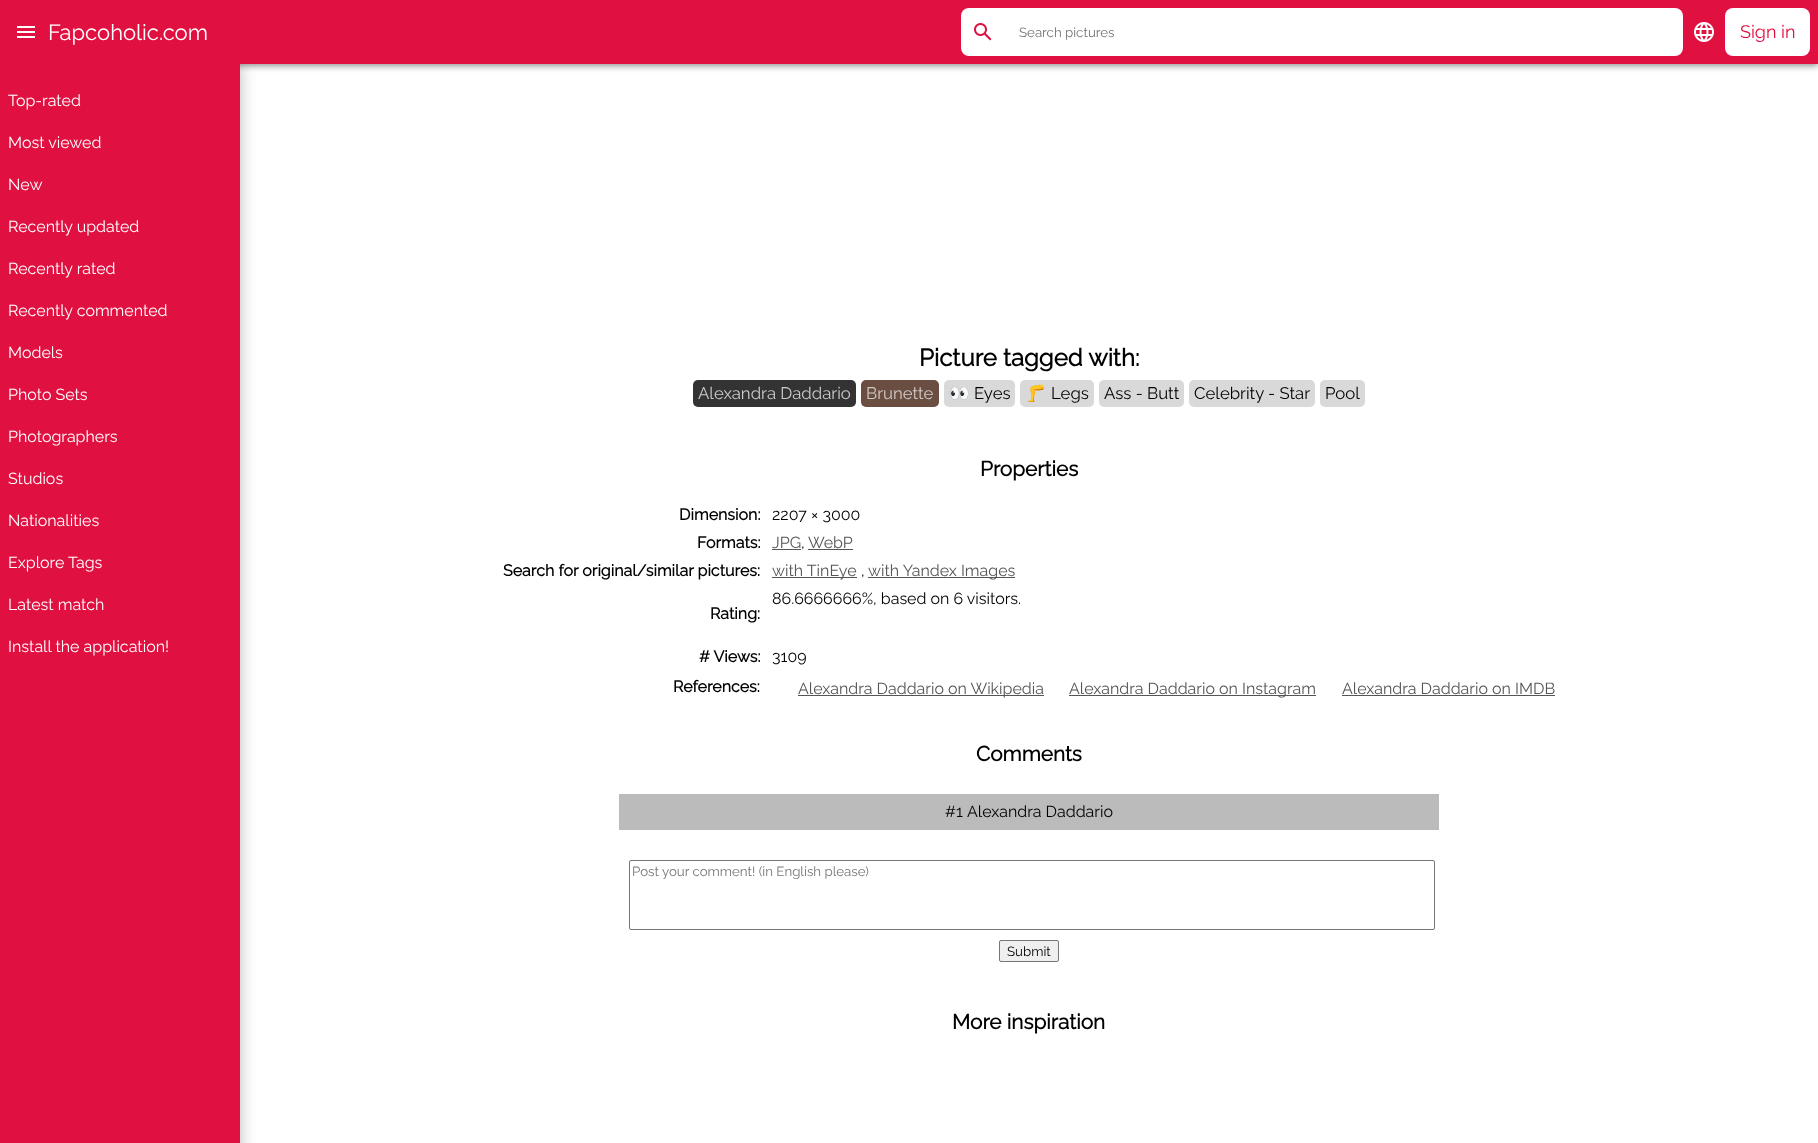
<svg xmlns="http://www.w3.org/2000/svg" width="1818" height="1143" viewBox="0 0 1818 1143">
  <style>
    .t1 { font: 100 22px Raleway; fill: #fff; }
    .t2 { font: 100 13.3px Raleway; fill: #757575; }
    .t3 { font: 100 18px Raleway; fill: #e01040; }
    .t4 { font: 100 16px Raleway; fill: #fff; }
    .t5 { font: bold 24px Raleway; fill: #000; }
    .t6 { font: 100 16.75px Raleway; fill: #ccc; }
    .t7 { font: 100 16.75px Raleway; fill: #d2c9c6; }
    .t8 { font: 16.75px Noto Color Emoji; fill: #000; }
    .t9 { font: 100 16.75px Raleway; fill: #000; }
    .t10 { font: bold 20.75px Raleway; fill: #000; }
    .t11 { font: bold 16px Raleway; fill: #000; }
    .t12 { font: 100 16px Raleway; fill: #000; }
    .t13 { font: 100 16px Raleway; fill: #555; }
    .t14 { font: 100 13.3px Raleway; fill: #000; }
  </style>
  <defs>
    <clipPath id="clip1"><rect x="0" y="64" width="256" height="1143"/></clipPath>
  </defs>
  <rect width="100%" height="100%" fill="#fff"/>
  <rect x="1" y="3" width="1816" height="62" fill="#00000033" filter="blur(2px)"/>
  <rect x="0" y="1" width="1818" height="64" fill="#0000001f" filter="blur(5px)"/>
  <rect x="0" y="4" width="1818" height="64" fill="#00000024" filter="blur(2.5px)"/>
  <rect x="0" y="0" width="1818" height="64" fill="#e01040"/>
  <image x="17" y="26" width="18" height="12" href="images/1.png"/>
  <text x="48" y="40" class="t1">Fapcoholic.com</text>
  <rect x="961" y="8" width="722" height="48" rx="8" fill="#fff"/>
  <image x="974" y="23" width="18" height="18" href="images/2.png"/>
  <text x="1019" y="37" class="t2">Search pictures</text>
  <image x="1694" y="22" width="20" height="20" href="images/3.png"/>
  <rect x="1725" y="8" width="85" height="48" rx="8" fill="#fff"/>
  <text x="1740" y="38" class="t3">Sign in</text>
  <g clip-path="url(#clip1)">
    <rect x="0" y="64" width="240" height="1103" fill="#00000047" filter="blur(8px)"/>
  </g>
  <rect x="0" y="64" width="240" height="1079" fill="#e01040"/>
  <text x="8" y="106" class="t4">Top-rated</text>
  <text x="8" y="148" class="t4">Most viewed</text>
  <text x="8" y="190" class="t4">New</text>
  <text x="8" y="232" class="t4">Recently updated</text>
  <text x="8" y="274" class="t4">Recently rated</text>
  <text x="8" y="316" class="t4">Recently commented</text>
  <text x="8" y="358" class="t4">Models</text>
  <text x="8" y="400" class="t4">Photo Sets</text>
  <text x="8" y="442" class="t4">Photographers</text>
  <text x="8" y="484" class="t4">Studios</text>
  <text x="8" y="526" class="t4">Nationalities</text>
  <text x="8" y="568" class="t4">Explore Tags</text>
  <text x="8" y="610" class="t4">Latest match</text>
  <text x="8" y="652" class="t4">Install the application!</text>
  <text x="919" y="366" class="t5">Picture tagged with:</text>
  <rect x="693" y="380" width="163" height="27" rx="5" fill="#333"/>
  <text x="698" y="399" class="t6">Alexandra Daddario</text>
  <rect x="861" y="380" width="78" height="27" rx="5" fill="#6a4e42"/>
  <text x="866" y="399" class="t7">Brunette</text>
  <rect x="944" y="380" width="71" height="27" rx="5" fill="#d9d9d9"/>
  <text x="949" y="399" class="t8">👀</text>
  <text x="974" y="399" class="t9">Eyes</text>
  <rect x="1020" y="380" width="74" height="27" rx="5" fill="#d9d9d9"/>
  <text x="1025" y="399" class="t8">🦵</text>
  <text x="1051" y="399" class="t9">Legs</text>
  <rect x="1099" y="380" width="85" height="27" rx="5" fill="#d9d9d9"/>
  <text x="1104" y="399" class="t9">Ass - Butt</text>
  <rect x="1189" y="380" width="126" height="27" rx="5" fill="#d9d9d9"/>
  <text x="1194" y="399" class="t9">Celebrity - Star</text>
  <rect x="1320" y="380" width="45" height="27" rx="5" fill="#d9d9d9"/>
  <text x="1325" y="399" class="t9">Pool</text>
  <text x="980" y="476" class="t10">Properties</text>
  <text x="679" y="520" class="t11">Dimension:</text>
  <text x="772" y="520" class="t12">2207 × 3000</text>
  <text x="697" y="548" class="t11">Formats:</text>
  <text x="772" y="548" class="t13">JPG</text>
  <rect x="772" y="549" width="29" height="1" fill="#555"/>
  <text x="801" y="548" class="t12">,</text>
  <rect x="808" y="549" width="45" height="1" fill="#555"/>
  <text x="808" y="548" class="t13">WebP</text>
  <text x="503" y="576" class="t11">Search for original/similar pictures:</text>
  <rect x="772" y="577" width="85" height="1" fill="#555"/>
  <text x="772" y="576" class="t13">with TinEye</text>
  <text x="861" y="576" class="t12">,</text>
  <rect x="868" y="577" width="147" height="1" fill="#555"/>
  <text x="868" y="576" class="t13">with Yandex Images</text>
  <text x="772" y="604" class="t12">86.6666666%, based on 6 visitors.</text>
  <text x="710" y="619" class="t11">Rating:</text>
  <text x="699" y="662" class="t11"># Views:</text>
  <text x="772" y="662" class="t12">3109</text>
  <text x="673" y="692" class="t11">References:</text>
  <rect x="798" y="695" width="246" height="1" fill="#555"/>
  <text x="798" y="694" class="t13">Alexandra Daddario on Wikipedia</text>
  <rect x="1069" y="695" width="247" height="1" fill="#555"/>
  <text x="1069" y="694" class="t13">Alexandra Daddario on Instagram</text>
  <text x="1342" y="694" class="t13">Alexandra Daddario on IMDB</text>
  <rect x="1342" y="695" width="213" height="1" fill="#555"/>
  <text x="976" y="761" class="t10">Comments</text>
  <rect x="619" y="794" width="820" height="36" fill="#bbb"/>
  <text x="945" y="817" class="t12">#1</text>
  <text x="967" y="817" class="t12">Alexandra Daddario</text>
  <rect x="629.5" y="860.5" width="805" height="69" rx="1.5" fill="none" stroke="#767676"/>
  <text x="632" y="876" class="t2">Post your comment! (in English please)</text>
  <rect x="999.5" y="940.5" width="59" height="21" rx="1.5" fill="#efefef" stroke="#767676"/>
  <text x="1007" y="956" class="t14">Submit</text>
  <text x="952" y="1029" class="t10">More inspiration</text>
</svg>
